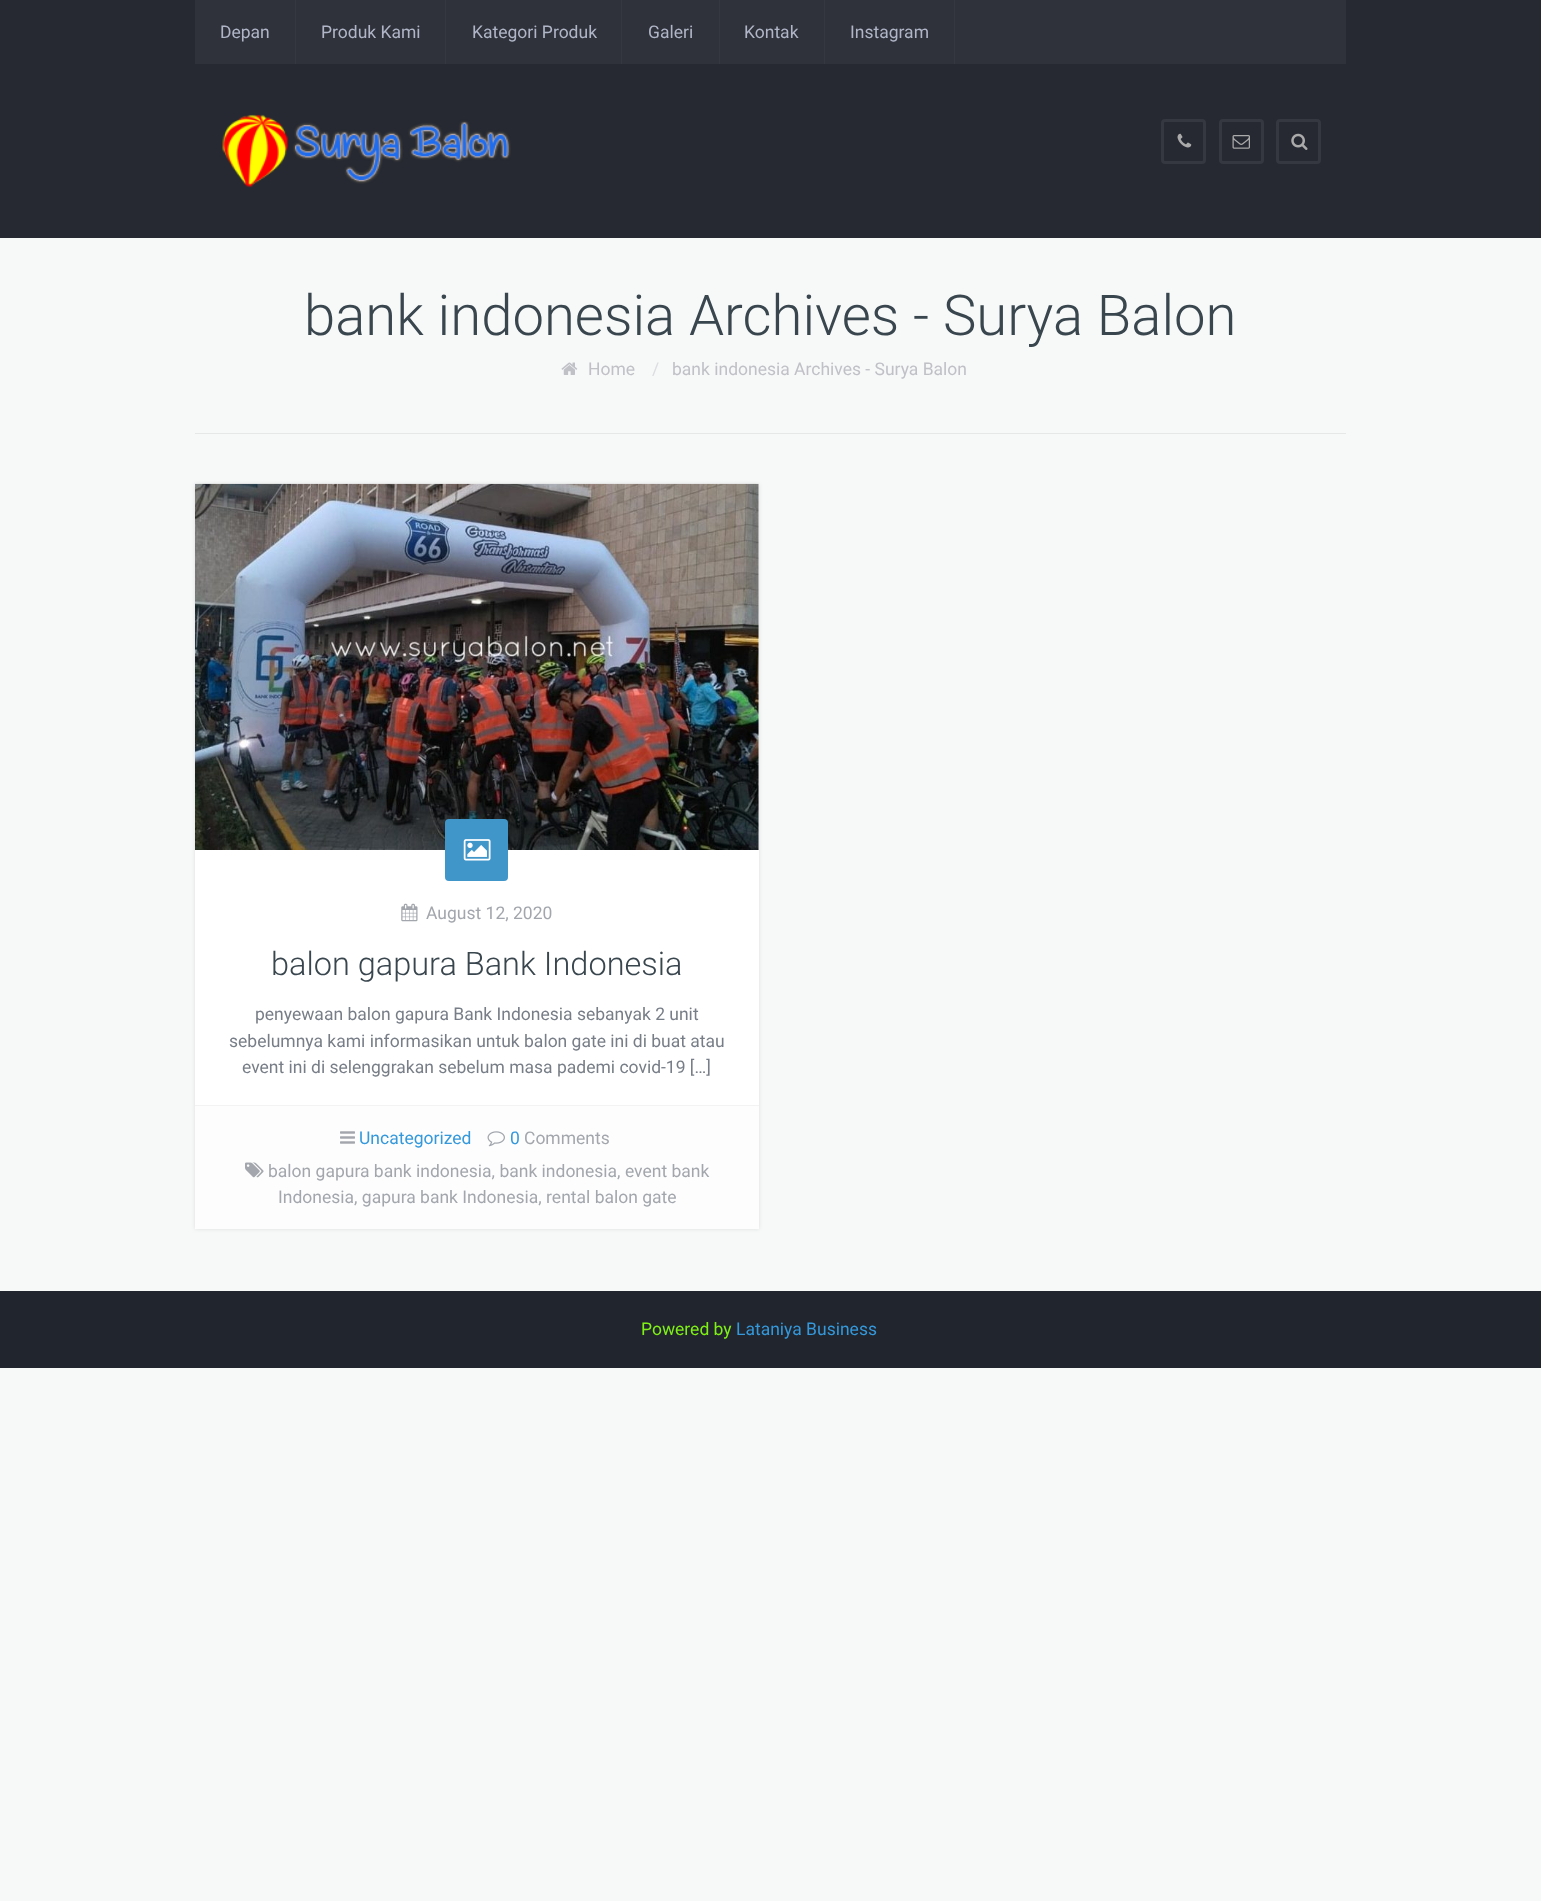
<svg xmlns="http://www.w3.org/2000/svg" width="1541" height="1901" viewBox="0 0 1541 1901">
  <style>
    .t1 { font: 17.5px Roboto; fill: #b0b6c8; }
    .t2 { font: 300 56.25px Roboto; fill: #39464e; }
    .t3 { font: 17.5px Roboto; fill: #c0c1c7; }
    .t4 { font: 17.5px Roboto; fill: #dcdde0; }
    .t5 { font: 17.5px Roboto; fill: #a3a7ad; }
    .t6 { font: 300 32.5px Roboto; fill: #39464e; }
    .t7 { font: 17.5px Roboto; fill: #787e87; }
    .t8 { font: 17.5px Roboto; fill: #3498db; }
    .t9 { font: 17.5px Roboto; fill: #7ff016; }
  </style>
  <rect width="100%" height="100%" fill="#f7f8f8"/>
  <rect x="0" y="0" width="1541" height="238" fill="#262932"/>
  <rect x="195" y="0" width="1151" height="64" fill="#2f323a"/>
  <rect x="295" y="0" width="1" height="64" fill="#353840"/>
  <text x="220" y="38" class="t1">Depan</text>
  <rect x="445" y="0" width="1" height="64" fill="#353840"/>
  <text x="321" y="38" class="t1">Produk Kami</text>
  <rect x="621" y="0" width="1" height="64" fill="#353840"/>
  <text x="472" y="38" class="t1">Kategori Produk</text>
  <rect x="719" y="0" width="1" height="64" fill="#353840"/>
  <text x="648" y="38" class="t1">Galeri</text>
  <rect x="824" y="0" width="1" height="64" fill="#353840"/>
  <text x="744" y="38" class="t1">Kontak</text>
  <rect x="954" y="0" width="1" height="64" fill="#353840"/>
  <text x="850" y="38" class="t1">Instagram</text>
  <image x="222" y="114" width="289" height="74" href="images/1.png"/>
  <rect x="1162.5" y="120.5" width="42" height="42" rx="2.5" fill="none" stroke="#353840" stroke-width="3"/>
  <image x="1177" y="133" width="15" height="15" href="images/2.png"/>
  <rect x="1220.5" y="120.5" width="42" height="42" rx="2.5" fill="none" stroke="#353840" stroke-width="3"/>
  <image x="1232" y="135" width="18" height="14" href="images/3.png"/>
  <rect x="1277.5" y="120.5" width="42" height="42" rx="2.5" fill="none" stroke="#353840" stroke-width="3"/>
  <image x="1291" y="133" width="17" height="17" href="images/4.png"/>
  <rect x="195" y="433" width="1151" height="1" fill="#e6e7e7"/>
  <text x="304" y="335" class="t2">bank indonesia Archives - Surya Balon</text>
  <image x="561" y="362" width="17" height="13" href="images/5.png"/>
  <text x="588" y="375" class="t3">Home</text>
  <text x="652" y="375" class="t4">/</text>
  <text x="672" y="375" class="t3">bank indonesia Archives - Surya Balon</text>
  <rect x="195" y="484" width="564" height="745" fill="#0000001a" filter="blur(2px)"/>
  <rect x="195" y="484" width="564" height="621" fill="#fff"/>
  <image x="195" y="483" width="564" height="367" href="images/6.png"/>
  <rect x="445" y="819" width="63" height="62" rx="4" fill="#4095c9"/>
  <image x="463" y="839" width="28" height="22" href="images/7.png"/>
  <image x="401" y="903" width="17" height="19" href="images/8.png"/>
  <text x="426" y="919" class="t5">August 12, 2020</text>
  <text x="271" y="975" class="t6">balon gapura Bank Indonesia</text>
  <text x="255" y="1020" class="t7">penyewaan balon gapura Bank Indonesia sebanyak 2 unit</text>
  <text x="229" y="1047" class="t7">sebelumnya kami informasikan untuk balon gate ini di buat atau</text>
  <text x="242" y="1073" class="t7">event ini di selenggrakan sebelum masa pademi covid-19 […]</text>
  <rect x="195" y="1106" width="564" height="123" fill="#fdfdfd"/>
  <rect x="195" y="1105" width="564" height="1" fill="#f3f3f3"/>
  <image x="340" y="1131" width="15" height="13" href="images/9.png"/>
  <text x="359" y="1144" class="t8">Uncategorized</text>
  <image x="487" y="1131" width="18" height="16" href="images/10.png"/>
  <text x="510" y="1144" class="t8">0</text>
  <text x="524" y="1144" class="t5">Comments</text>
  <image x="245" y="1162" width="19" height="16" href="images/11.png"/>
  <text x="268" y="1177" class="t5">balon gapura bank indonesia, bank indonesia, event bank</text>
  <text x="278" y="1203" class="t5">Indonesia, gapura bank Indonesia, rental balon gate</text>
  <rect x="0" y="1291" width="1541" height="77" fill="#21252d"/>
  <text x="641" y="1335" class="t9">Powered by</text>
  <text x="736" y="1335" class="t8">Lataniya Business</text>
</svg>
